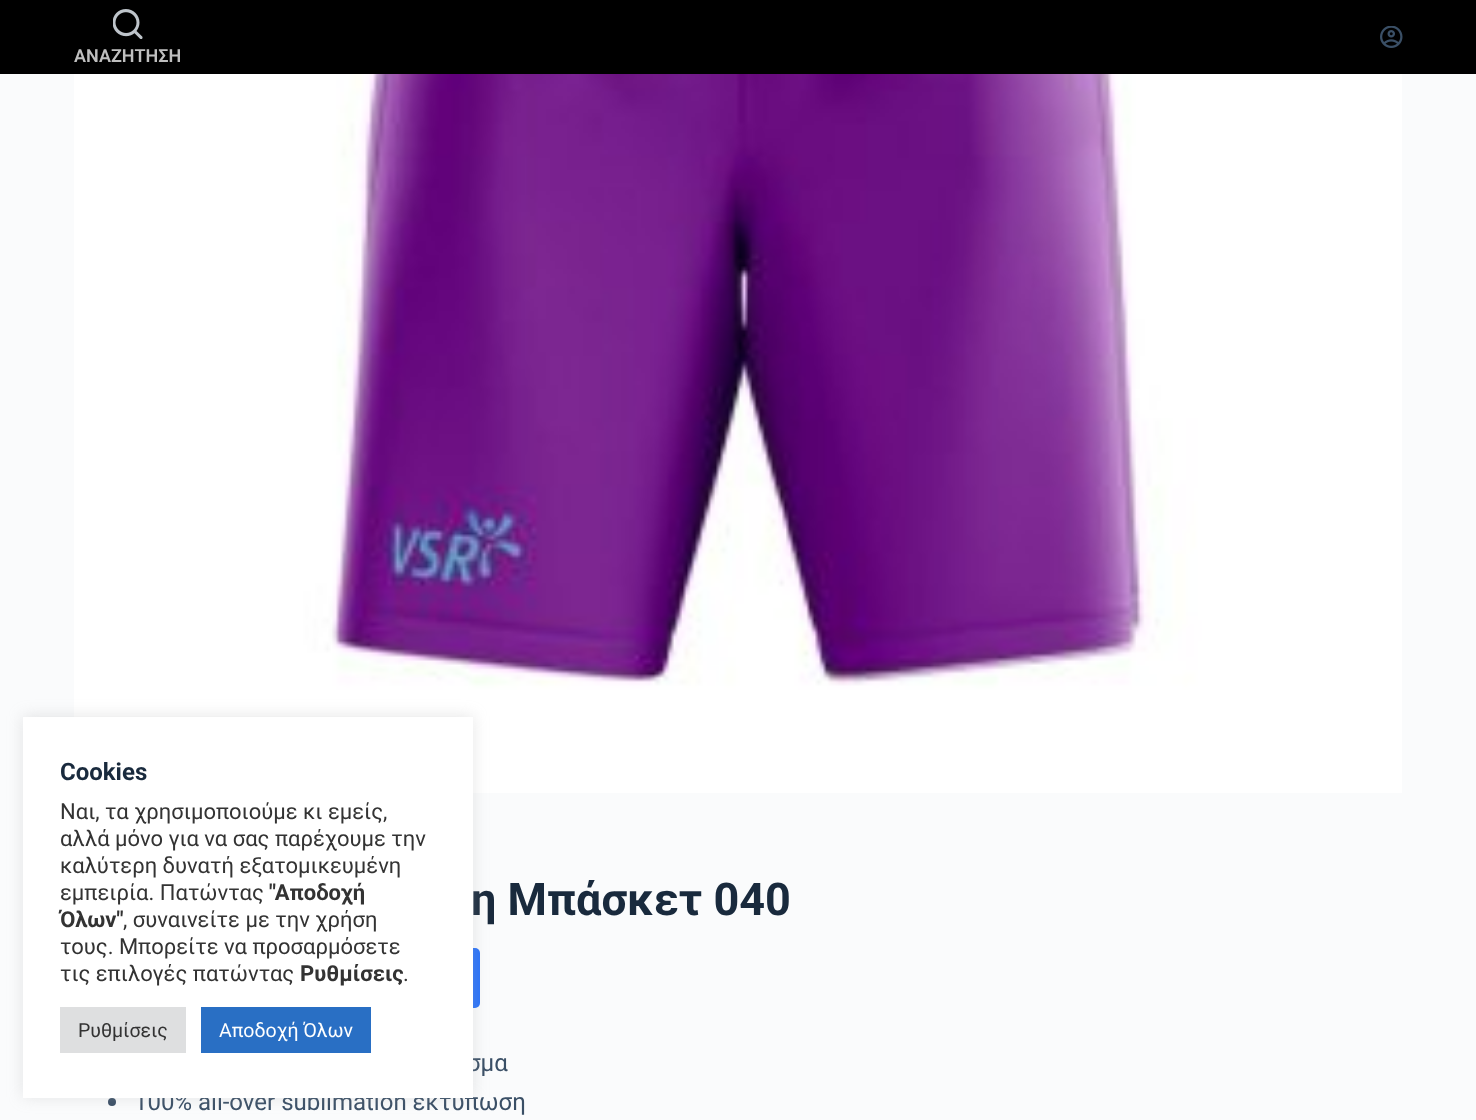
<svg xmlns="http://www.w3.org/2000/svg" width="1476" height="1120" viewBox="0 0 1476 1120">
  <style>
    .t1 { font: 600 18px Roboto; fill: #bfbfbf; }
    .t2 { font: bold 45px Roboto; fill: #192a3d; }
    .t3 { font: 24px Roboto; fill: #3a4f66; }
    .t4 { font: bold 24px Roboto; fill: #192a3d; }
    .t5 { font: 22px Roboto; fill: #333; }
    .t6 { font: bold 22px Roboto; fill: #333; }
    .t7 { font: 19.5px Roboto; fill: #333; }
    .t8 { font: 19.5px Roboto; fill: #fff; }
  </style>
  <rect width="100%" height="100%" fill="#fafbfc"/>
  <rect x="0" y="0" width="1476" height="74" fill="#000"/>
  <image x="1380" y="26" width="23" height="22" href="images/1.png"/>
  <image x="113" y="9" width="30" height="30" href="images/2.png"/>
  <text x="74" y="62" class="t1">ΑΝΑΖΗΤΗΣΗ</text>
  <image x="74" y="74" width="1328" height="719" href="images/3.png"/>
  <text x="471" y="915" class="t2">η Μπάσκετ 040</text>
  <rect x="74" y="948" width="406" height="60" rx="5" fill="#2872fa"/>
  <text x="467" y="1071" class="t3">σμα</text>
  <circle cx="112" cy="1102" r="4" fill="#3a4f66"/>
  <text x="134" y="1110" class="t3">100% all-over sublimation εκτύπωση</text>
  <rect x="23" y="716" width="450" height="381" fill="#acabab4d" filter="blur(7.5px)"/>
  <rect x="23" y="717" width="450" height="381" fill="#fff"/>
  <text x="60" y="780" class="t4">Cookies</text>
  <text x="60" y="819" class="t5">Ναι, τα χρησιμοποιούμε κι εμείς,</text>
  <text x="60" y="846" class="t5">αλλά μόνο για να σας παρέχουμε την</text>
  <text x="60" y="873" class="t5">καλύτερη δυνατή εξατομικευμένη</text>
  <text x="60" y="900" class="t5">εμπειρία. Πατώντας</text>
  <text x="269" y="900" class="t6">"Αποδοχή</text>
  <text x="60" y="927" class="t6">Όλων"</text>
  <text x="123" y="927" class="t5">, συναινείτε με την χρήση</text>
  <text x="60" y="954" class="t5">τους. Μπορείτε να προσαρμόσετε</text>
  <text x="60" y="981" class="t5">τις επιλογές πατώντας</text>
  <text x="300" y="981" class="t6">Ρυθμίσεις</text>
  <text x="403" y="981" class="t5">.</text>
  <rect x="60" y="1007" width="126" height="46" fill="#dedfe0"/>
  <text x="78" y="1037" class="t7">Ρυθμίσεις</text>
  <rect x="201" y="1007" width="170" height="46" fill="#296fc4"/>
  <text x="219" y="1037" class="t8">Αποδοχή Όλων</text>
</svg>
